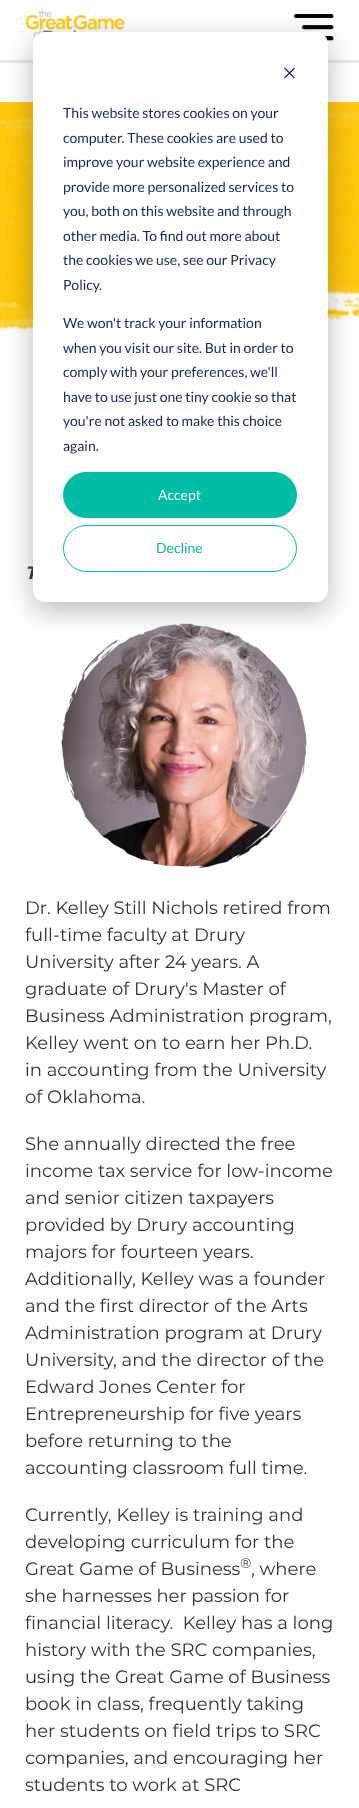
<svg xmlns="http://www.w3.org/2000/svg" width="359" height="1808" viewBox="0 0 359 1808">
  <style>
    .t1 { font: italic bold 18px Montserrat; fill: #333; }
    .t2 { font: 14px Lato; fill: #15295a; }
    .t3 { font: 14px Lato; fill: #fff; }
    .t4 { font: 14px Lato; fill: #00bda5; }
    .t5 { font: 18px Montserrat; fill: #333; }
    .t6 { font: 14px Montserrat; fill: #333; }
  </style>
  <defs>
    <clipPath id="clip1"><rect x="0" y="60" width="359" height="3"/></clipPath>
  </defs>
  <rect width="100%" height="100%" fill="#fff"/>
  <g clip-path="url(#clip1)">
    <rect x="-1" y="-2" width="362" height="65" fill="#00000017" filter="blur(0.5px)"/>
  </g>
  <image x="25" y="10" width="100" height="28" href="images/1.png"/>
  <image x="294" y="14" width="40" height="27" href="images/2.png"/>
  <image x="0" y="102" width="359" height="257" href="images/4.png"/>
  <image x="61" y="623" width="246" height="246" href="images/5.png"/>
  <rect x="33" y="40" width="295" height="570" rx="12" fill="#00000047" filter="blur(14px)"/>
  <text x="25" y="579" class="t1">T</text>
  <rect x="33" y="32" width="295" height="570" rx="12" fill="#fff"/>
  <image x="284" y="67" width="11" height="12" href="images/3.png"/>
  <text x="63" y="118" class="t2">This website stores cookies on your</text>
  <text x="63" y="143" class="t2">computer. These cookies are used to</text>
  <text x="63" y="167" class="t2">improve your website experience and</text>
  <text x="63" y="192" class="t2">provide more personalized services to</text>
  <text x="63" y="216" class="t2">you, both on this website and through</text>
  <text x="63" y="241" class="t2">other media. To find out more about</text>
  <text x="63" y="265" class="t2">the cookies we use, see our Privacy</text>
  <text x="63" y="290" class="t2">Policy.</text>
  <text x="63" y="328" class="t2">We won't track your information</text>
  <text x="63" y="353" class="t2">when you visit our site. But in order to</text>
  <text x="63" y="377" class="t2">comply with your preferences, we'll</text>
  <text x="63" y="402" class="t2">have to use just one tiny cookie so that</text>
  <text x="63" y="426" class="t2">you're not asked to make this choice</text>
  <text x="63" y="451" class="t2">again.</text>
  <rect x="63.5" y="472.5" width="233" height="45" rx="22.5" fill="#00bda5" stroke="#00bda5"/>
  <text x="158" y="500" class="t3">Accept</text>
  <rect x="63.5" y="525.5" width="233" height="46" rx="23" fill="none" stroke="#00bda5"/>
  <text x="156" y="553" class="t4">Decline</text>
  <text x="25" y="914" class="t5">Dr. Kelley Still Nichols retired from</text>
  <text x="25" y="941" class="t5">full-time faculty at Drury</text>
  <text x="25" y="968" class="t5">University after 24 years. A</text>
  <text x="25" y="995" class="t5">graduate of Drury's Master of</text>
  <text x="25" y="1022" class="t5">Business Administration program,</text>
  <text x="25" y="1049" class="t5">Kelley went on to earn her Ph.D.</text>
  <text x="25" y="1076" class="t5">in accounting from the University</text>
  <text x="25" y="1103" class="t5">of Oklahoma.</text>
  <text x="25" y="1150" class="t5">She annually directed the free</text>
  <text x="25" y="1177" class="t5">income tax service for low-income</text>
  <text x="25" y="1204" class="t5">and senior citizen taxpayers</text>
  <text x="25" y="1231" class="t5">provided by Drury accounting</text>
  <text x="25" y="1258" class="t5">majors for fourteen years.</text>
  <text x="25" y="1285" class="t5">Additionally, Kelley was a founder</text>
  <text x="25" y="1312" class="t5">and the first director of the Arts</text>
  <text x="25" y="1339" class="t5">Administration program at Drury</text>
  <text x="25" y="1366" class="t5">University, and the director of the</text>
  <text x="25" y="1393" class="t5">Edward Jones Center for</text>
  <text x="25" y="1420" class="t5">Entrepreneurship for five years</text>
  <text x="25" y="1447" class="t5">before returning to the</text>
  <text x="25" y="1474" class="t5">accounting classroom full time.</text>
  <text x="25" y="1521" class="t5">Currently, Kelley is training and</text>
  <text x="25" y="1548" class="t5">developing curriculum for the</text>
  <text x="25" y="1575" class="t5">Great Game of Business</text>
  <text x="240" y="1568" class="t6">®</text>
  <text x="251" y="1575" class="t5">, where</text>
  <text x="25" y="1602" class="t5">she harnesses her passion for</text>
  <text x="25" y="1629" class="t5" xml:space="preserve">financial literacy.  Kelley has a long</text>
  <text x="25" y="1656" class="t5">history with the SRC companies,</text>
  <text x="25" y="1683" class="t5">using the Great Game of Business</text>
  <text x="25" y="1710" class="t5">book in class, frequently taking</text>
  <text x="25" y="1737" class="t5">her students on field trips to SRC</text>
  <text x="25" y="1764" class="t5">companies, and encouraging her</text>
  <text x="25" y="1791" class="t5">students to work at SRC</text>
</svg>
